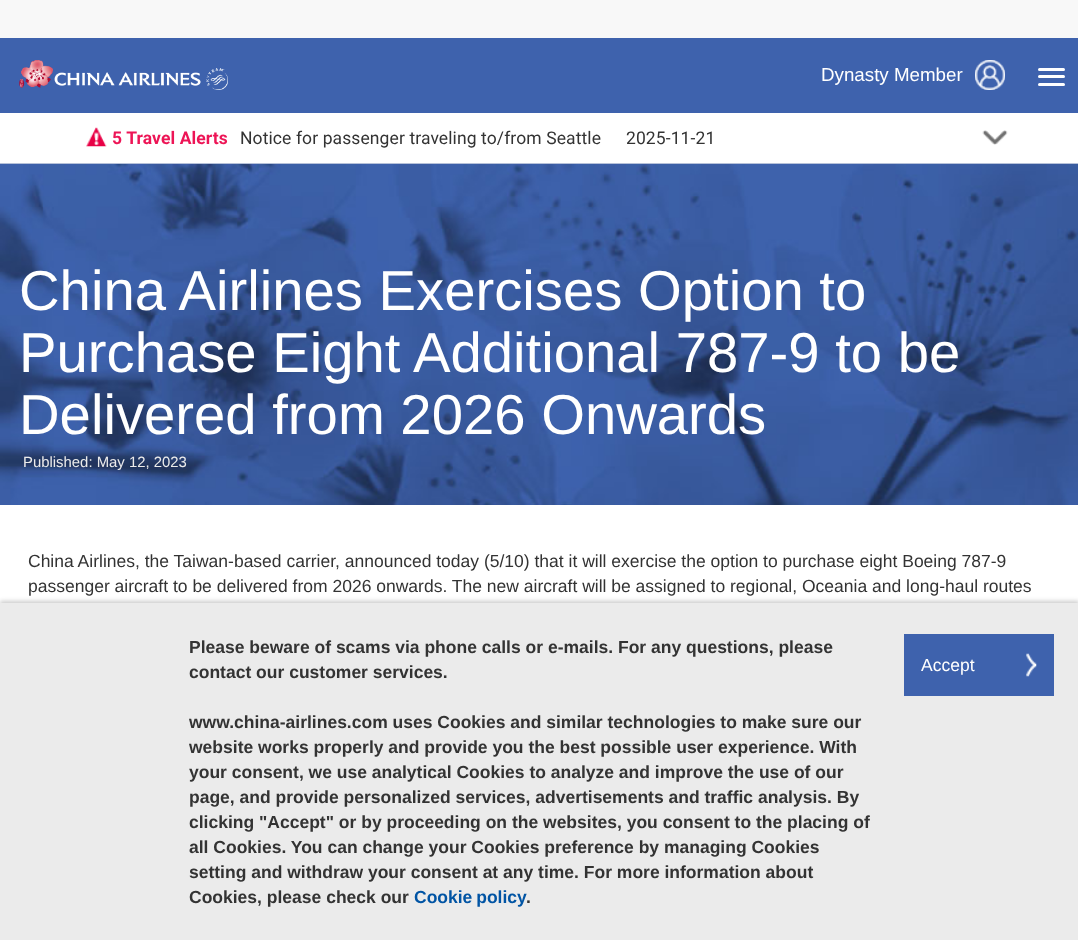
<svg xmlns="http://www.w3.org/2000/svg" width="1078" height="940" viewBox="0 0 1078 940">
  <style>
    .t1 { font: 18.75px Liberation Sans; fill: #fff; }
    .t2 { font: bold 17.5px Roboto; letter-spacing: 0.1px; fill: #ed1556; }
    .t3 { font: 17.5px Roboto; letter-spacing: 0.1px; fill: #333; }
    .t4 { font: 56.25px Liberation Sans; fill: #fff; }
    .t5 { font: 14.9px Liberation Sans; fill: #ebebeb; }
    .t6 { font: 17.5px Liberation Sans; fill: #333; }
    .t7 { font: bold 17.5px Liberation Sans; fill: #333; }
    .t8 { font: bold 17.5px Liberation Sans; fill: #0054a4; }
    .t9 { font: 17.5px Liberation Sans; fill: #fff; }
  </style>
  <rect width="100%" height="100%" fill="#fff"/>
  <rect x="0" y="0" width="1078" height="38" fill="#f8f8f8"/>
  <rect x="0" y="38" width="1078" height="75" fill="#3e62ad"/>
  <image x="19" y="60" width="209" height="30" href="images/1.png"/>
  <text x="821" y="81" class="t1">Dynasty Member</text>
  <image x="975" y="60" width="30" height="30" href="images/2.png"/>
  <rect x="1038" y="68" width="27" height="3" rx="1.5" fill="#fff"/>
  <rect x="1038" y="75" width="27" height="3" rx="1.5" fill="#fff"/>
  <rect x="1038" y="83" width="27" height="3" rx="1.5" fill="#fff"/>
  <image x="86" y="127" width="21" height="20" href="images/3.png"/>
  <text x="112" y="144" class="t2">5 Travel Alerts</text>
  <text x="240" y="144" class="t3">Notice for passenger traveling to/from Seattle</text>
  <text x="626" y="144" class="t3">2025-11-21</text>
  <image x="982" y="130" width="26" height="15" href="images/4.png"/>
  <image x="0" y="164" width="1078" height="341" href="images/5.png"/>
  <rect x="0" y="163" width="1078" height="1" fill="#b6c1d9"/>
  <text x="19" y="310" class="t4">China Airlines Exercises Option to</text>
  <text x="19" y="372" class="t4">Purchase Eight Additional 787-9 to be</text>
  <text x="19" y="434" class="t4">Delivered from 2026 Onwards</text>
  <text x="23" y="467" class="t5">Published: May 12, 2023</text>
  <text x="28" y="567" class="t6">China Airlines, the Taiwan-based carrier, announced today (5/10) that it will exercise the option to purchase eight Boeing 787-9</text>
  <text x="28" y="592" class="t6">passenger aircraft to be delivered from 2026 onwards. The new aircraft will be assigned to regional, Oceania and long-haul routes</text>
  <rect x="0" y="601" width="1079" height="338" fill="#00000033" filter="blur(2px)"/>
  <rect x="0" y="603" width="1078" height="337" fill="#ebebeb"/>
  <text x="189" y="653" class="t7">Please beware of scams via phone calls or e-mails. For any questions, please</text>
  <text x="189" y="678" class="t7">contact our customer services.</text>
  <text x="189" y="728" class="t7">www.china-airlines.com uses Cookies and similar technologies to make sure our</text>
  <text x="189" y="753" class="t7">website works properly and provide you the best possible user experience. With</text>
  <text x="189" y="778" class="t7">your consent, we use analytical Cookies to analyze and improve the use of our</text>
  <text x="189" y="803" class="t7">page, and provide personalized services, advertisements and traffic analysis. By</text>
  <text x="189" y="828" class="t7">clicking "Accept" or by proceeding on the websites, you consent to the placing of</text>
  <text x="189" y="853" class="t7">all Cookies. You can change your Cookies preference by managing Cookies</text>
  <text x="189" y="878" class="t7">setting and withdraw your consent at any time. For more information about</text>
  <text x="189" y="903" class="t7">Cookies, please check our</text>
  <text x="414" y="903" word-spacing="-1" class="t8">Cookie policy</text>
  <text x="526" y="903" class="t7">.</text>
  <rect x="904" y="634" width="150" height="62" fill="#3e62ad"/>
  <text x="921" y="671" class="t9">Accept</text>
  <image x="1026" y="653" width="11" height="24" href="images/6.png"/>
</svg>
